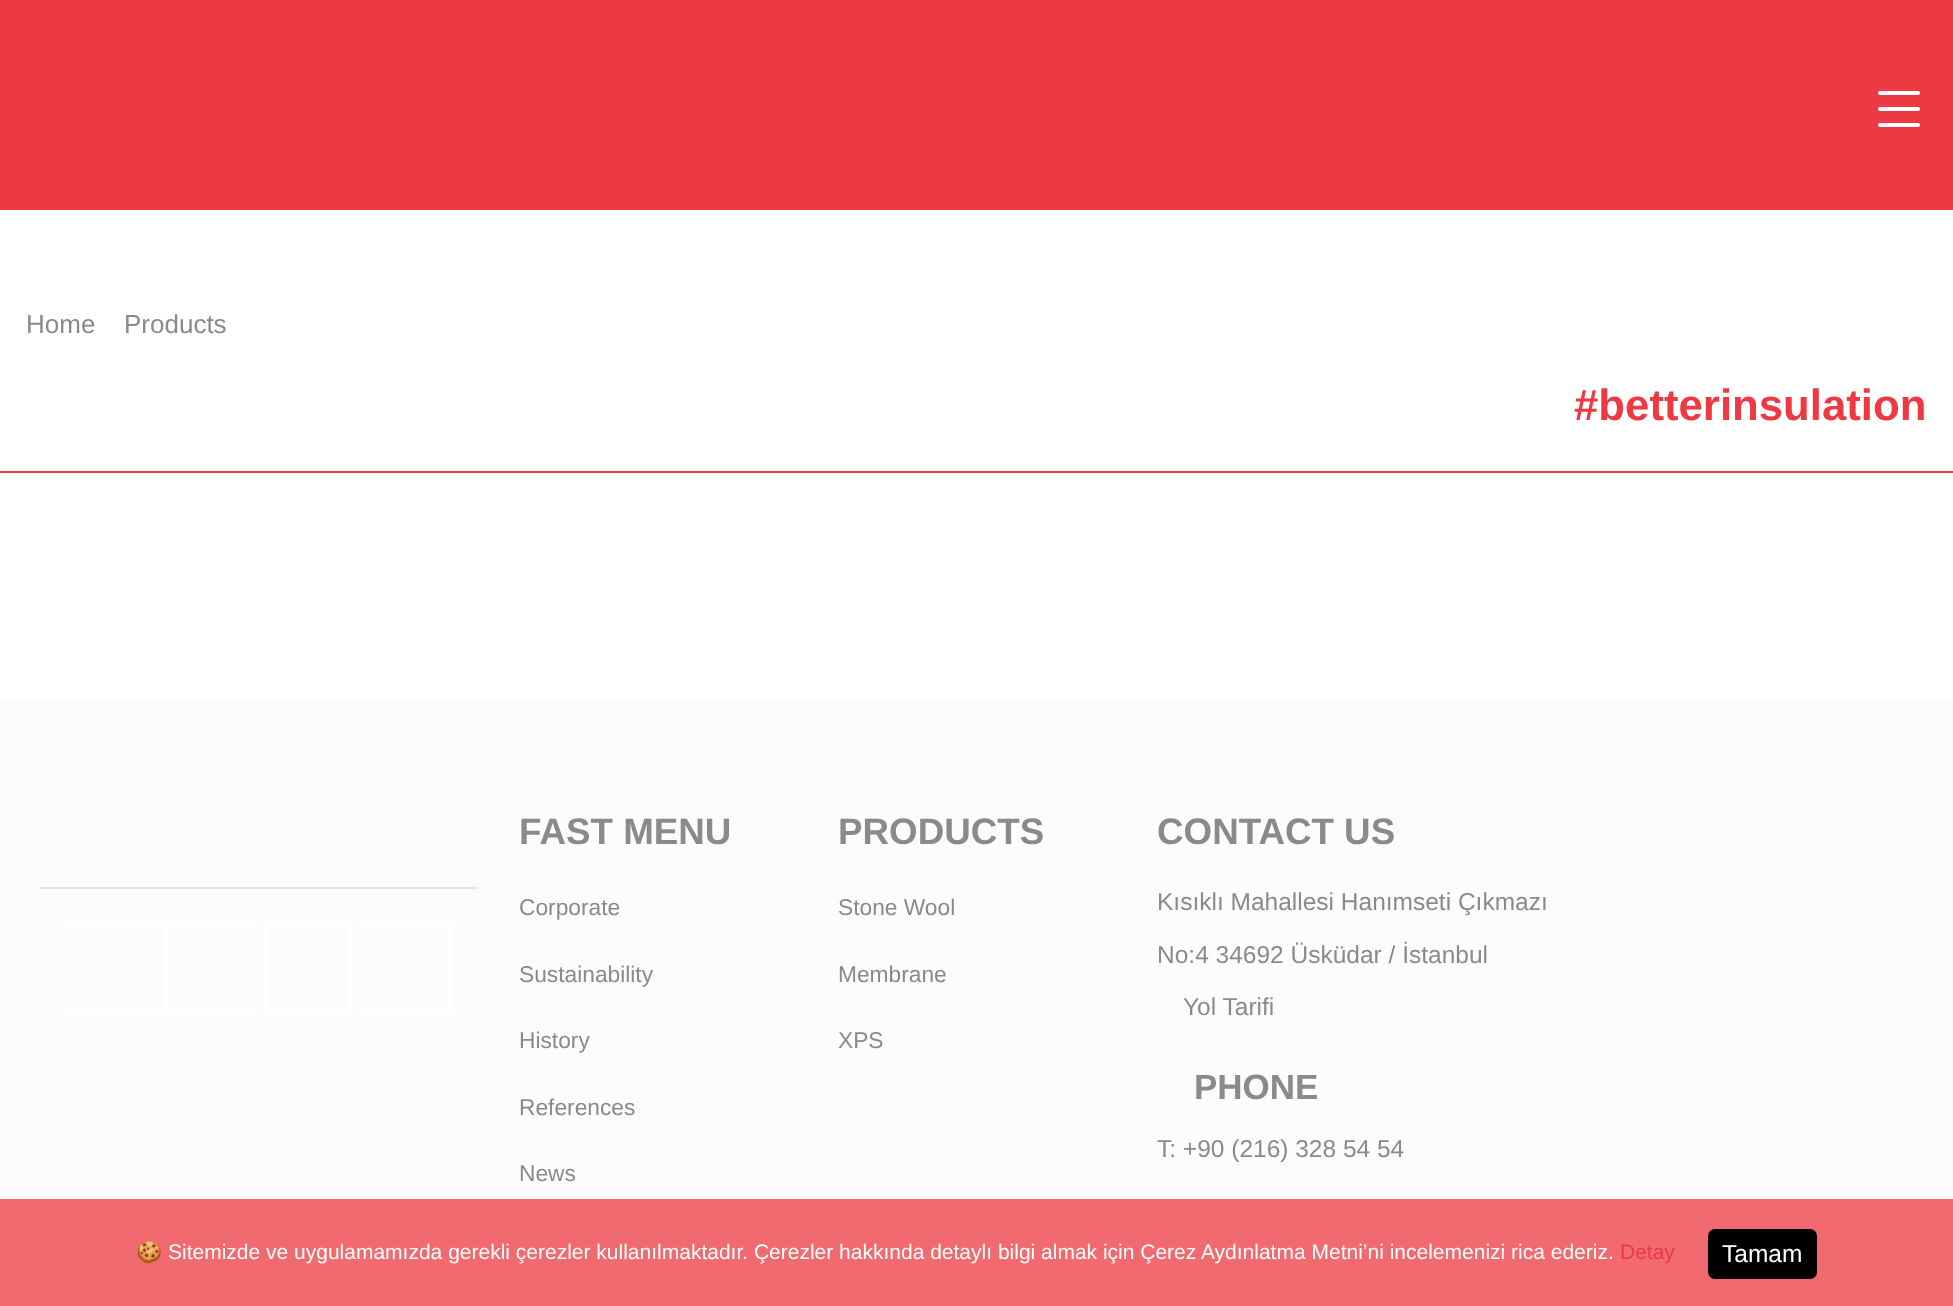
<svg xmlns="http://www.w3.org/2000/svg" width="1953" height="1306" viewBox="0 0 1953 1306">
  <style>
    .t1 { font: 26px Liberation Sans; fill: #898a8d; }
    .t2 { font: bold 43.75px Liberation Sans; fill: #ed3a42; }
    .t3 { font: bold 36.75px Liberation Sans; fill: #898a8d; }
    .t4 { font: 22.75px Liberation Sans; fill: #898a8d; }
    .t5 { font: 24.5px Liberation Sans; fill: #898a8d; }
    .t6 { font: bold 35px Liberation Sans; fill: #898a8d; }
    .t7 { font: 21px Noto Color Emoji; fill: #fff; }
    .t8 { font: 21px Liberation Sans; fill: #fff; }
    .t9 { font: 21px Liberation Sans; fill: #ed3a42; }
    .t10 { font: 24.5px Liberation Sans; fill: #fff; }
  </style>
  <rect width="100%" height="100%" fill="#fff"/>
  <rect x="0" y="0" width="1953" height="210" fill="#ed3a42"/>
  <rect x="1878" y="123" width="42" height="4" rx="2" fill="#fff"/>
  <rect x="1878" y="107" width="42" height="4" rx="2" fill="#fff"/>
  <rect x="1878" y="91" width="42" height="4" rx="2" fill="#fff"/>
  <rect x="0" y="471" width="1953" height="2" fill="#ed3a42"/>
  <text x="26" y="333" class="t1">Home</text>
  <text x="124" y="333" class="t1">Products</text>
  <text x="1574" y="420" class="t2">#betterinsulation</text>
  <rect x="0" y="700" width="1953" height="606" fill="#fcfcfc"/>
  <rect x="40" y="887" width="438" height="2" fill="#e3e3e3"/>
  <rect x="69" y="925" width="86" height="86" fill="none" stroke="#fff" stroke-width="2"/>
  <rect x="167" y="925" width="86" height="86" fill="none" stroke="#fff" stroke-width="2"/>
  <rect x="265" y="925" width="86" height="86" fill="none" stroke="#fff" stroke-width="2"/>
  <rect x="363" y="925" width="86" height="86" fill="none" stroke="#fff" stroke-width="2"/>
  <text x="519" y="844" class="t3">FAST MENU</text>
  <text x="519" y="915" class="t4">Corporate</text>
  <text x="519" y="982" class="t4">Sustainability</text>
  <text x="519" y="1048" class="t4">History</text>
  <text x="519" y="1115" class="t4">References</text>
  <text x="519" y="1181" class="t4">News</text>
  <text x="838" y="844" class="t3">PRODUCTS</text>
  <text x="838" y="915" class="t4">Stone Wool</text>
  <text x="838" y="982" class="t4">Membrane</text>
  <text x="838" y="1048" class="t4">XPS</text>
  <text x="1157" y="844" class="t3">CONTACT US</text>
  <text x="1157" y="910" class="t5">Kısıklı Mahallesi Hanımseti Çıkmazı</text>
  <text x="1157" y="963" class="t5">No:4 34692 Üsküdar / İstanbul</text>
  <text x="1183" y="1015" class="t5">Yol Tarifi</text>
  <text x="1194" y="1099" class="t6">PHONE</text>
  <text x="1157" y="1157" class="t5">T: +90 (216) 328 54 54</text>
  <rect x="0" y="1199" width="1953" height="107" fill="#ed3a42bf"/>
  <text x="136" y="1259" class="t7">🍪</text>
  <text x="168" y="1259" class="t8">Sitemizde ve uygulamamızda gerekli çerezler kullanılmaktadır. Çerezler hakkında detaylı bilgi almak için Çerez Aydınlatma Metni’ni incelemenizi rica ederiz.</text>
  <text x="1620" y="1259" class="t9">Detay</text>
  <rect x="1708" y="1229" width="109" height="50" rx="7" fill="#000"/>
  <text x="1722" y="1262" class="t10">Tamam</text>
</svg>
